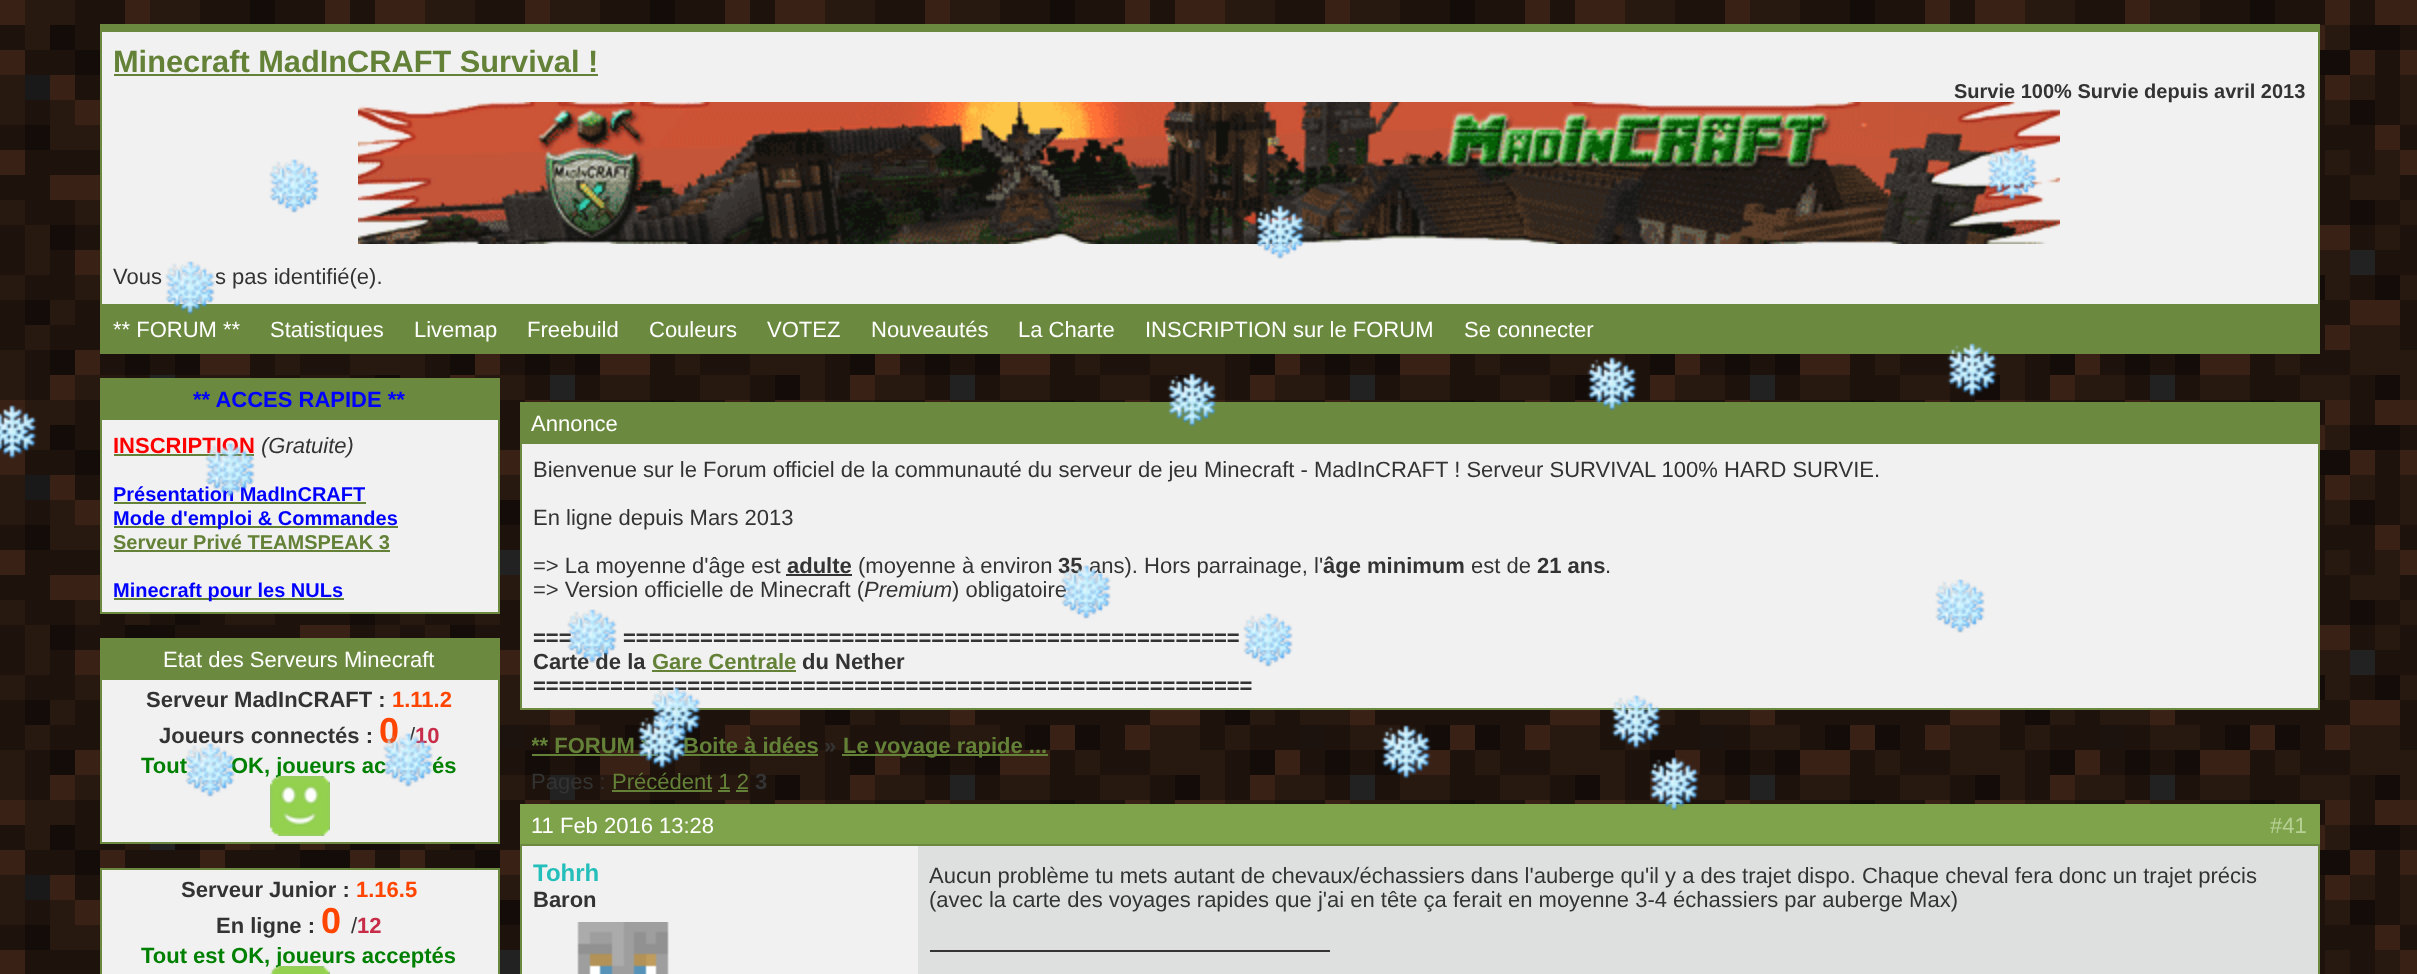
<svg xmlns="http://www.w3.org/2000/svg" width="2417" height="974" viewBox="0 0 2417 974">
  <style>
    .t1 { font: bold 30.75px Liberation Sans; fill: #638137; }
    .t2 { font: bold 20px Liberation Sans; fill: #333; }
    .t3 { font: 22px Liberation Sans; fill: #333; }
    .t4 { font: 22px Liberation Sans; fill: #fff; }
    .t5 { font: bold 22px Liberation Sans; fill: #00f; }
    .t6 { font: bold 22px Liberation Sans; fill: #f00; }
    .t7 { font: italic 22px Liberation Sans; fill: #333; }
    .t8 { font: bold 20px Liberation Sans; fill: #00f; }
    .t9 { font: bold 20px Liberation Sans; fill: #638137; }
    .t10 { font: bold 22px Liberation Sans; fill: #333; }
    .t11 { font: bold 22px Liberation Sans; fill: #ff4500; }
    .t12 { font: bold 36px Liberation Sans; fill: #ff4500; }
    .t13 { font: bold 22px Liberation Sans; fill: #c72c48; }
    .t14 { font: bold 22px Liberation Sans; fill: #008000; }
    .t15 { font: bold 22px Liberation Sans; fill: #638137; }
    .t16 { font: 22px Liberation Sans; fill: #638137; }
    .t17 { font: 22px Liberation Sans; fill: #b7d094; }
    .t18 { font: bold 24px Liberation Sans; fill: #24bfba; }
  </style>
  <defs>
    <clipPath id="clip1"><rect x="532" y="726" width="1776" height="36"/></clipPath>
  </defs>
  <rect width="100%" height="100%" fill="#fff"/>
  <image x="0" y="0" width="2417" height="974" href="images/1.png"/>
  <rect x="102" y="32" width="2216" height="272" fill="#f1f1f1"/>
  <rect x="100" y="24" width="2220" height="8" fill="#6c8a3f"/>
  <rect x="2318" y="24" width="2" height="330" fill="#6c8a3f"/>
  <rect x="100" y="352" width="2220" height="2" fill="#6c8a3f"/>
  <rect x="100" y="24" width="2" height="330" fill="#6c8a3f"/>
  <text x="113" y="72" class="t1">Minecraft MadInCRAFT Survival !</text>
  <rect x="114" y="74" width="484" height="2" fill="#638137"/>
  <text x="1954" y="98" class="t2">Survie 100% Survie depuis avril 2013</text>
  <image x="358" y="102" width="1702" height="142" href="images/2.png"/>
  <text x="113" y="284" class="t3">Vous</text>
  <text x="215" y="284" class="t3">s pas identifié(e).</text>
  <rect x="102" y="304" width="2216" height="48" fill="#6c8a3f"/>
  <text x="113" y="337" class="t4">** FORUM **</text>
  <text x="270" y="337" class="t4">Statistiques</text>
  <text x="414" y="337" class="t4">Livemap</text>
  <text x="527" y="337" class="t4">Freebuild</text>
  <text x="649" y="337" class="t4">Couleurs</text>
  <text x="767" y="337" class="t4">VOTEZ</text>
  <text x="871" y="337" class="t4">Nouveautés</text>
  <text x="1018" y="337" class="t4">La Charte</text>
  <text x="1145" y="337" class="t4">INSCRIPTION sur le FORUM</text>
  <text x="1464" y="337" class="t4">Se connecter</text>
  <rect x="100" y="378" width="400" height="40" fill="#6c8a3f"/>
  <text x="193" y="407" class="t5">** ACCES RAPIDE **</text>
  <rect x="101" y="419" width="398" height="194" fill="#f1f1f1" stroke="#6c8a3f" stroke-width="2"/>
  <text x="113" y="453" class="t6">INSCRIPTION</text>
  <rect x="114" y="454" width="140" height="2" fill="#638137"/>
  <text x="261" y="453" class="t7">(Gratuite)</text>
  <text x="113" y="501" class="t8">Présentation MadInCRAFT</text>
  <rect x="114" y="502" width="252" height="2" fill="#638137"/>
  <rect x="114" y="526" width="284" height="2" fill="#638137"/>
  <text x="113" y="525" class="t8">Mode d'emploi &amp; Commandes</text>
  <text x="113" y="549" class="t9">Serveur Privé TEAMSPEAK 3</text>
  <rect x="114" y="550" width="276" height="2" fill="#638137"/>
  <rect x="114" y="598" width="230" height="2" fill="#638137"/>
  <text x="113" y="597" class="t8">Minecraft pour les NULs</text>
  <rect x="100" y="638" width="400" height="40" fill="#6c8a3f"/>
  <text x="163" y="667" class="t4">Etat des Serveurs Minecraft</text>
  <rect x="101" y="679" width="398" height="164" fill="#f1f1f1" stroke="#6c8a3f" stroke-width="2"/>
  <text x="146" y="707" class="t10">Serveur MadInCRAFT :</text>
  <text x="392" y="707" class="t11">1.11.2</text>
  <text x="159" y="743" class="t10">Joueurs connectés :</text>
  <text x="379" y="743" class="t12">0</text>
  <text x="409" y="743" class="t3">/</text>
  <text x="415" y="743" class="t13">10</text>
  <text x="141" y="773" class="t14">Tout</text>
  <text x="231" y="773" class="t14">OK, joueurs ac</text>
  <text x="432" y="773" class="t14">és</text>
  <image x="270" y="776" width="60" height="60" href="images/3.png"/>
  <rect x="101" y="869" width="398" height="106" fill="#f1f1f1" stroke="#6c8a3f" stroke-width="2"/>
  <text x="181" y="897" class="t10">Serveur Junior :</text>
  <text x="356" y="897" class="t11">1.16.5</text>
  <text x="216" y="933" class="t10">En ligne :</text>
  <text x="321" y="933" class="t12">0</text>
  <text x="351" y="933" class="t3">/</text>
  <text x="357" y="933" class="t13">12</text>
  <text x="141" y="963" class="t14">Tout est OK, joueurs acceptés</text>
  <image x="270" y="966" width="60" height="8" href="images/4.png"/>
  <rect x="520" y="402" width="1800" height="40" fill="#6c8a3f"/>
  <text x="531" y="431" class="t4">Annonce</text>
  <rect x="521" y="443" width="1798" height="266" fill="#f1f1f1" stroke="#6c8a3f" stroke-width="2"/>
  <text x="533" y="477" class="t3">Bienvenue sur le Forum officiel de la communauté du serveur de jeu Minecraft - MadInCRAFT ! Serveur SURVIVAL 100% HARD SURVIE.</text>
  <text x="533" y="525" class="t3">En ligne depuis Mars 2013</text>
  <text x="533" y="573" class="t3">=&gt; La moyenne d'âge est</text>
  <text x="787" y="573" class="t10">adulte</text>
  <rect x="786" y="574" width="66" height="2" fill="#333"/>
  <text x="858" y="573" class="t3">(moyenne à environ</text>
  <text x="1058" y="573" class="t10">35</text>
  <text x="1089" y="573" class="t3">ans). Hors parrainage, l'</text>
  <text x="1323" y="573" class="t10">âge minimum</text>
  <text x="1471" y="573" class="t3">est de</text>
  <text x="1537" y="573" class="t10">21 ans</text>
  <text x="1605" y="573" class="t3">.</text>
  <text x="533" y="597" class="t3">=&gt; Version officielle de Minecraft (</text>
  <text x="864" y="597" class="t7">Premium</text>
  <text x="952" y="597" class="t3">) obligatoire</text>
  <text x="533" y="645" class="t10">===</text>
  <text x="623" y="645" class="t10">================================================</text>
  <text x="533" y="669" class="t10">Carte de la</text>
  <text x="652" y="669" class="t15">Gare Centrale</text>
  <rect x="652" y="670" width="144" height="2" fill="#638137"/>
  <text x="802" y="669" class="t10">du Nether</text>
  <text x="533" y="693" class="t10">========================================================</text>
  <g clip-path="url(#clip1)">
    <text x="531" y="753" class="t15">** FORUM *</text>
  </g>
  <rect x="532" y="754" width="126" height="2" fill="#638137"/>
  <text x="683" y="753" class="t15">Boite à idées</text>
  <rect x="682" y="754" width="136" height="2" fill="#638137"/>
  <text x="824" y="753" class="t10">»</text>
  <rect x="842" y="754" width="206" height="2" fill="#638137"/>
  <text x="843" y="753" class="t15">Le voyage rapide ...</text>
  <text x="531" y="789" class="t3">Pages :</text>
  <text x="612" y="789" class="t16">Précédent 1 2</text>
  <rect x="612" y="790" width="100" height="2" fill="#638137"/>
  <text x="755" y="789" class="t10">3</text>
  <rect x="718" y="790" width="12" height="2" fill="#638137"/>
  <rect x="736" y="790" width="12" height="2" fill="#638137"/>
  <rect x="520" y="804" width="1800" height="40" fill="#7ea34b"/>
  <text x="531" y="833" class="t4">11 Feb 2016 13:28</text>
  <text x="2270" y="833" class="t17">#41</text>
  <rect x="918" y="846" width="1400" height="128" fill="#dedfdf"/>
  <rect x="521" y="845" width="1798" height="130" fill="none" stroke="#6c8a3f" stroke-width="2"/>
  <rect x="522" y="846" width="396" height="128" fill="#f1f1f1"/>
  <text x="533" y="881" class="t18">Tohrh</text>
  <text x="533" y="907" class="t10">Baron</text>
  <image x="577" y="922" width="92" height="52" href="images/5.png"/>
  <text x="929" y="883" class="t3">Aucun problème tu mets autant de chevaux/échassiers dans l'auberge qu'il y a des trajet dispo. Chaque cheval fera donc un trajet précis</text>
  <text x="929" y="907" class="t3">(avec la carte des voyages rapides que j'ai en tête ça ferait en moyenne 3-4 échassiers par auberge Max)</text>
  <rect x="930" y="950" width="400" height="2" fill="#333"/>
  <image x="269" y="159" width="50" height="54" href="images/6.png"/>
  <image x="1987" y="147" width="50" height="54" href="images/7.png"/>
  <image x="1255" y="205" width="50" height="54" href="images/8.png"/>
  <image x="165" y="261" width="50" height="54" href="images/9.png"/>
  <image x="0" y="405" width="37" height="54" href="images/10.png"/>
  <image x="1167" y="373" width="50" height="54" href="images/11.png"/>
  <image x="1587" y="357" width="50" height="54" href="images/12.png"/>
  <image x="1947" y="343" width="50" height="54" href="images/13.png"/>
  <image x="205" y="443" width="50" height="54" href="images/14.png"/>
  <image x="567" y="609" width="50" height="54" href="images/15.png"/>
  <image x="1061" y="565" width="50" height="54" href="images/16.png"/>
  <image x="1243" y="613" width="50" height="54" href="images/17.png"/>
  <image x="1935" y="579" width="50" height="54" href="images/6.png"/>
  <image x="651" y="687" width="50" height="54" href="images/18.png"/>
  <image x="1611" y="695" width="50" height="54" href="images/19.png"/>
  <image x="185" y="743" width="50" height="54" href="images/20.png"/>
  <image x="383" y="733" width="50" height="54" href="images/21.png"/>
  <image x="637" y="715" width="50" height="54" href="images/22.png"/>
  <image x="1381" y="725" width="50" height="54" href="images/23.png"/>
  <image x="1649" y="757" width="50" height="54" href="images/24.png"/>
</svg>
